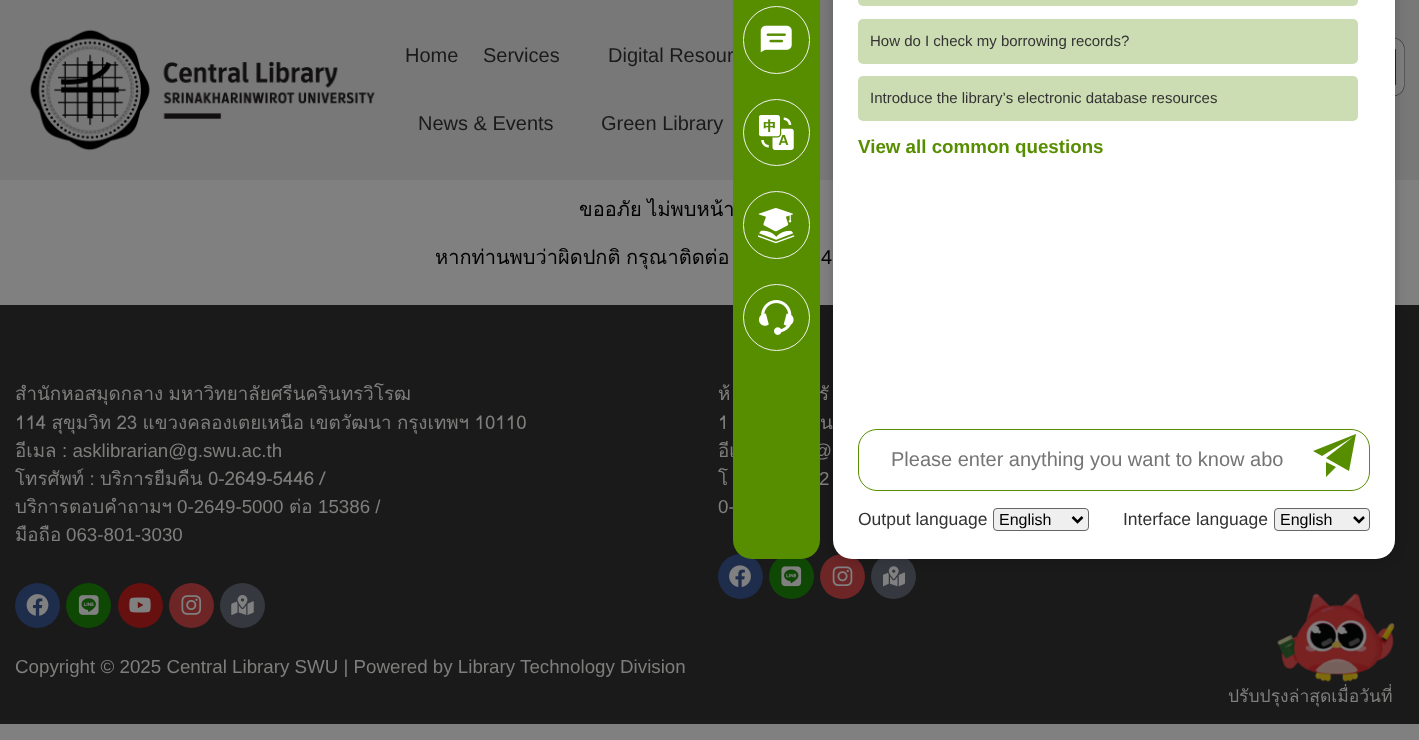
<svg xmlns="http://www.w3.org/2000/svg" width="1419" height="740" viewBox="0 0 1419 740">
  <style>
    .t1 { font: 20px Liberation Sans; fill: #1a1a1a; }
    .t2 { font: 18.75px Loma; fill: #7e7e7c; }
    .t3 { font: 18.75px Liberation Sans; fill: #7e7e7c; }
    .t4 { font: 15px Liberation Sans; fill: #333; }
    .t5 { font: bold 18.75px Liberation Sans; fill: #578e00; }
    .t6 { font: 20px Liberation Sans; fill: #757575; }
    .t7 { font: 17.5px Liberation Sans; fill: #333; }
    .t8 { font: 16px Liberation Sans; fill: #000; }
    .t9 { font: 20px Loma; fill: #000; }
    .t10 { font: 20px Liberation Sans; fill: #000; }
    .t11 { font: 17.5px Loma; fill: #7e7e7c; }
  </style>
  <rect width="100%" height="100%" fill="#808080"/>
  <rect x="0" y="0" width="1419" height="180" fill="#787878"/>
  <image x="30" y="29" width="345" height="122" href="images/1.png"/>
  <text x="405" y="62" class="t1">Home</text>
  <text x="483" y="62" class="t1">Services</text>
  <text x="608" y="62" class="t1">Digital Resour</text>
  <text x="418" y="130" class="t1">News &amp; Events</text>
  <text x="601" y="130" class="t1">Green Library</text>
  <image x="1395" y="37" width="10" height="60" href="images/2.png"/>
  <rect x="0" y="305" width="1419" height="419" fill="#1a1a1b"/>
  <circle cx="842.5" cy="576.5" r="22.5" fill="#6d2526"/>
  <image x="832" y="566" width="21" height="20" href="images/14.png"/>
  <circle cx="893.5" cy="576.5" r="22.5" fill="#35393f"/>
  <image x="883" y="566" width="22" height="21" href="images/15.png"/>
  <rect x="833" y="-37" width="562" height="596" rx="19" fill="#00000033" filter="blur(6px)"/>
  <text x="819" y="400" word-spacing="-1" class="t2">รั</text>
  <text x="718" y="457" class="t2">อีเ</text>
  <text x="813" y="457" class="t3">@</text>
  <text x="819" y="485" class="t3">2</text>
  <text x="718" y="513" class="t3">0-</text>
  <circle cx="740.5" cy="576.5" r="22.5" fill="#1e2d4c"/>
  <circle cx="791.5" cy="576.5" r="22.5" fill="#0e4804"/>
  <rect x="733" y="-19" width="87" height="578" rx="19" fill="#578e00"/>
  <rect x="743.5" y="6.5" width="66" height="67" rx="33" fill="none" stroke="#f2f2f2"/>
  <image x="760" y="25" width="32" height="28" href="images/3.png"/>
  <circle cx="776.5" cy="132.5" r="33" fill="none" stroke="#f2f2f2"/>
  <image x="759" y="115" width="35" height="35" href="images/4.png"/>
  <rect x="743.5" y="191.5" width="66" height="67" rx="33" fill="none" stroke="#f2f2f2"/>
  <image x="758" y="208" width="37" height="36" href="images/5.png"/>
  <circle cx="776.5" cy="317.5" r="33" fill="none" stroke="#f2f2f2"/>
  <image x="759" y="300" width="35" height="35" href="images/6.png"/>
  <rect x="833" y="-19" width="562" height="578" rx="19" fill="#fff"/>
  <rect x="858" y="-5" width="500" height="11" rx="5" fill="#cdddb3"/>
  <rect x="858" y="19" width="500" height="45" rx="5" fill="#cdddb3"/>
  <text x="870" y="46" class="t4">How do I check my borrowing records?</text>
  <rect x="858" y="76" width="500" height="45" rx="5" fill="#cdddb3"/>
  <text x="870" y="103" class="t4">Introduce the library’s electronic database resources</text>
  <text x="858" y="153" class="t5">View all common questions</text>
  <rect x="858.5" y="429.5" width="511" height="61" rx="18.5" fill="none" stroke="#578e00"/>
  <text x="891" y="466" class="t6">Please enter anything you want to know abo</text>
  <path d="M1322 456L1313 451L1356 434L1349 471L1326 458L1353 437ZM1336 467L1326 477V462Z" fill="#578e00"/>
  <text x="858" y="525" class="t7">Output language</text>
  <rect x="993.5" y="508.5" width="95" height="22" rx="3.5" fill="#efefef" stroke="#666"/>
  <path d="M1072.5 517L1077.5 522L1082.5 517" fill="none" stroke="#000" stroke-width="2.5"/>
  <text x="999" y="525" class="t8">English</text>
  <text x="1123" y="525" class="t7">Interface language</text>
  <rect x="1274.5" y="508.5" width="95" height="22" rx="3.5" fill="#efefef" stroke="#666"/>
  <path d="M1354 517L1359 522L1364 517" fill="none" stroke="#000" stroke-width="2.5"/>
  <text x="1280" y="525" class="t8">English</text>
  <text x="579" y="216" word-spacing="-1" class="t9">ขออภัย ไม่พบหน้า</text>
  <text x="435" y="264" class="t9">หากท่านพบว่าผิดปกติ</text>
  <text x="626" y="264" class="t9">กรุณาติดต่อ</text>
  <text x="821" y="264" class="t10">4</text>
  <text x="15" y="400" word-spacing="-1" class="t2">สำนักหอสมุดกลาง มหาวิทยาลัยศรีนครินทรวิโรฒ</text>
  <text x="15" y="429" word-spacing="-1" class="t2">114 สุขุมวิท 23 แขวงคลองเตยเหนือ เขตวัฒนา กรุงเทพฯ 10110</text>
  <text x="15" y="457" class="t2">อีเมล</text>
  <text x="62" y="457" class="t3">: asklibrarian@g.swu.ac.th</text>
  <text x="15" y="485" word-spacing="-1" class="t2">โทรศัพท์ : บริการยืมคืน 0-2649-5446 /</text>
  <text x="15" y="513" class="t2">บริการตอบคำถามฯ</text>
  <text x="177" y="513" class="t3">0-2649-5000</text>
  <text x="289" y="513" class="t2">ต่อ</text>
  <text x="318" y="513" class="t3">15386 /</text>
  <text x="15" y="541" class="t2">มือถือ</text>
  <text x="66" y="541" class="t3">063-801-3030</text>
  <circle cx="37.5" cy="605.5" r="22.5" fill="#1e2d4c"/>
  <image x="26" y="594" width="23" height="22" href="images/7.png"/>
  <circle cx="88.5" cy="605.5" r="22.5" fill="#0e4804"/>
  <image x="78" y="595" width="21" height="20" href="images/8.png"/>
  <circle cx="140.5" cy="605.5" r="22.5" fill="#671010"/>
  <image x="129" y="597" width="22" height="16" href="images/9.png"/>
  <circle cx="191.5" cy="605.5" r="22.5" fill="#6d2526"/>
  <image x="181" y="595" width="21" height="20" href="images/10.png"/>
  <circle cx="242.5" cy="605.5" r="22.5" fill="#35393f"/>
  <image x="231" y="595" width="23" height="20" href="images/11.png"/>
  <text x="718" y="400" word-spacing="-1" class="t2">ห้</text>
  <text x="718" y="429" word-spacing="-1" class="t2">1</text>
  <text x="820" y="429" word-spacing="-1" class="t2">น</text>
  <text x="718" y="485" class="t2">โ</text>
  <image x="729" y="565" width="22" height="22" href="images/12.png"/>
  <image x="781" y="566" width="21" height="21" href="images/13.png"/>
  <text x="15" y="673" class="t3">Copyright © 2025 Central Library SWU | Powered by Library Technology Division</text>
  <text x="1228" y="702" class="t11">ปรับปรุงล่าสุดเมื่อวันที่</text>
  <image x="1277" y="593" width="118" height="89" href="images/16.png"/>
</svg>
